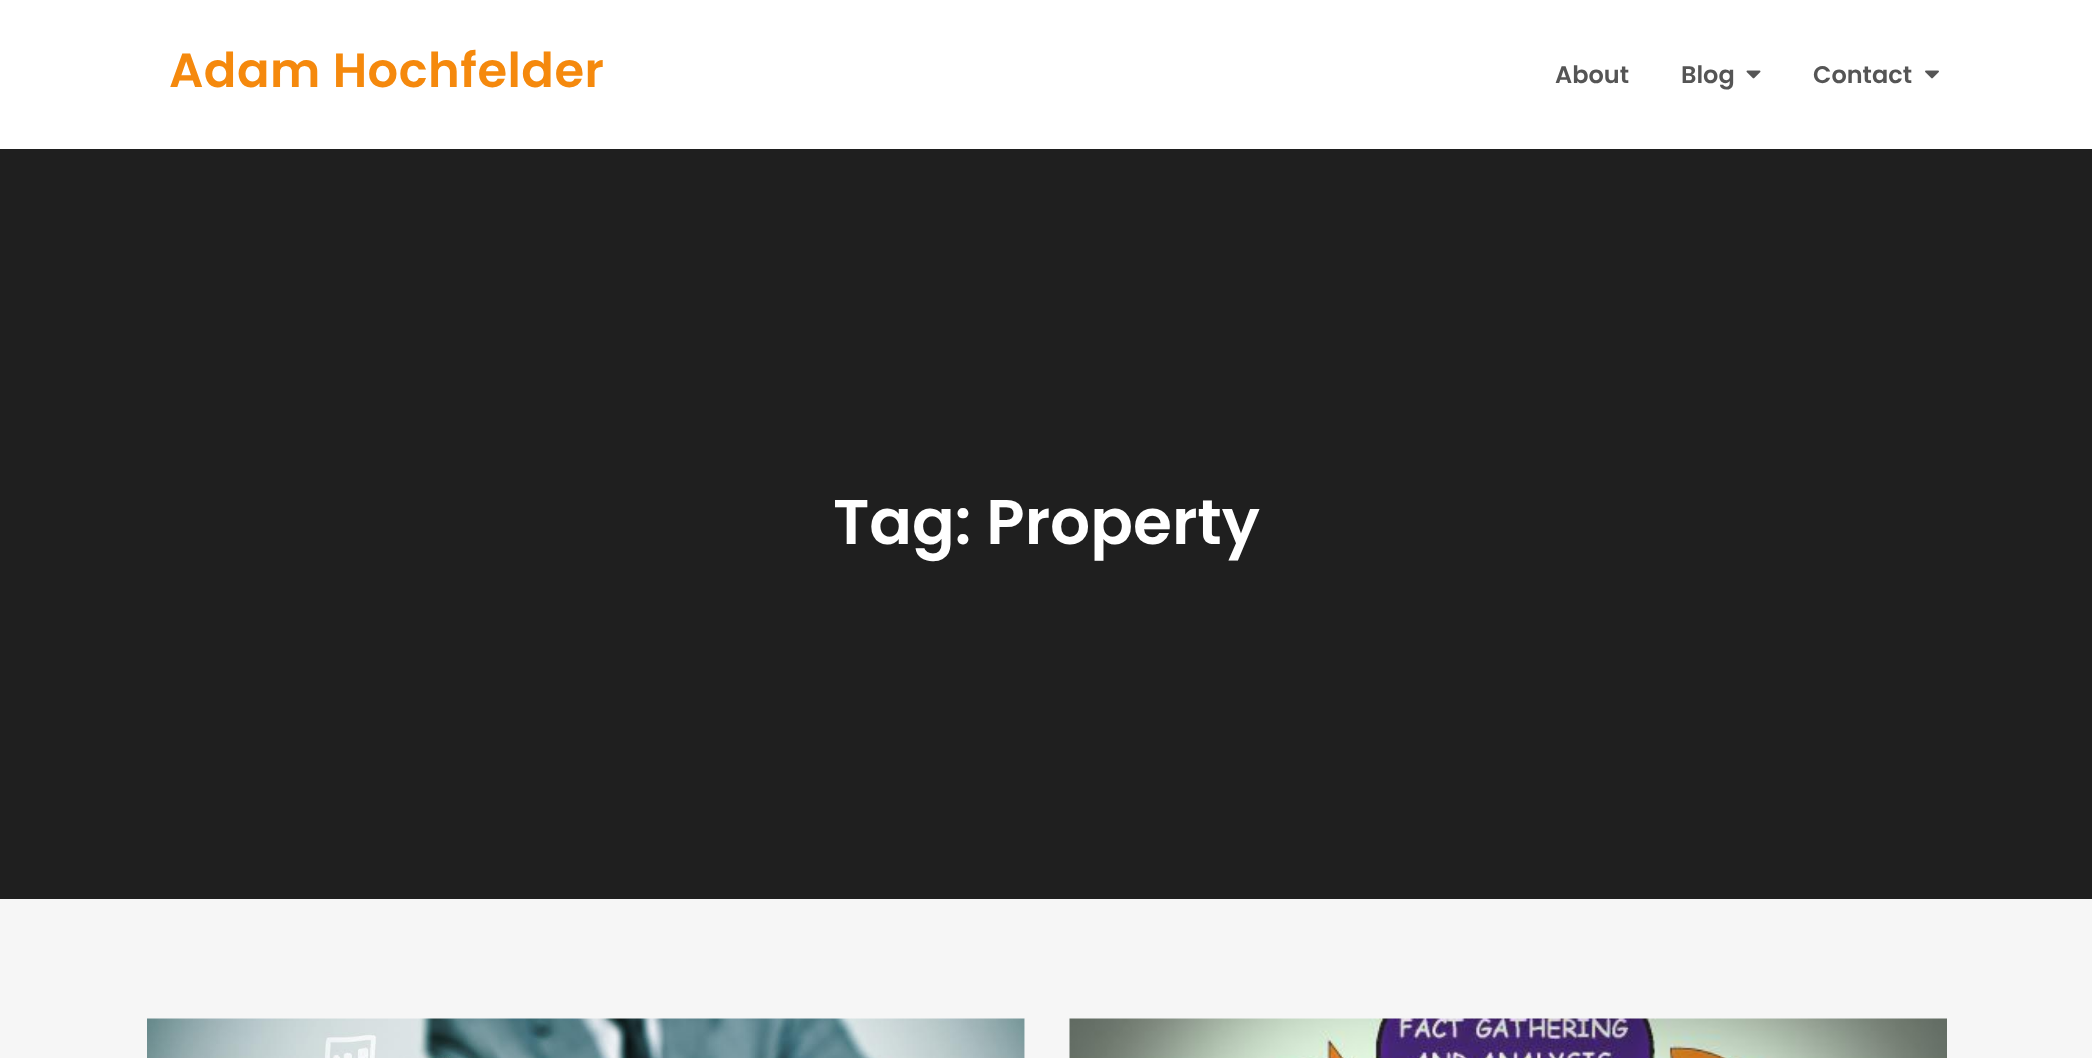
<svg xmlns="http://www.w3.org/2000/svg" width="2092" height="1058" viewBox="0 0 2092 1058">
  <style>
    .t1 { font: 600 48px Poppins; letter-spacing: 0.5px; fill: #f5890d; }
    .t2 { font: 600 24px Poppins; fill: #555; }
    .t3 { font: 600 63px Poppins; fill: #fff; }
  </style>
  <rect width="100%" height="100%" fill="#f6f6f6"/>
  <rect x="0" y="0" width="2092" height="149" fill="#fff"/>
  <text x="169" y="87" class="t1">Adam Hochfelder</text>
  <text x="1555" y="83" class="t2">About</text>
  <text x="1681" y="83" class="t2">Blog</text>
  <image x="1746" y="70" width="15" height="9" href="images/1.png"/>
  <text x="1813" y="83" class="t2">Contact</text>
  <image x="1925" y="70" width="14" height="9" href="images/2.png"/>
  <rect x="0" y="149" width="2092" height="750" fill="#1f1f1f"/>
  <text x="833" y="544" class="t3">Tag: Property</text>
  <rect x="1024" y="1019" width="1" height="39" fill="#fff"/>
  <image x="147" y="1018" width="878" height="40" href="images/3.png"/>
  <image x="1069" y="1018" width="878" height="40" href="images/4.png"/>
</svg>
